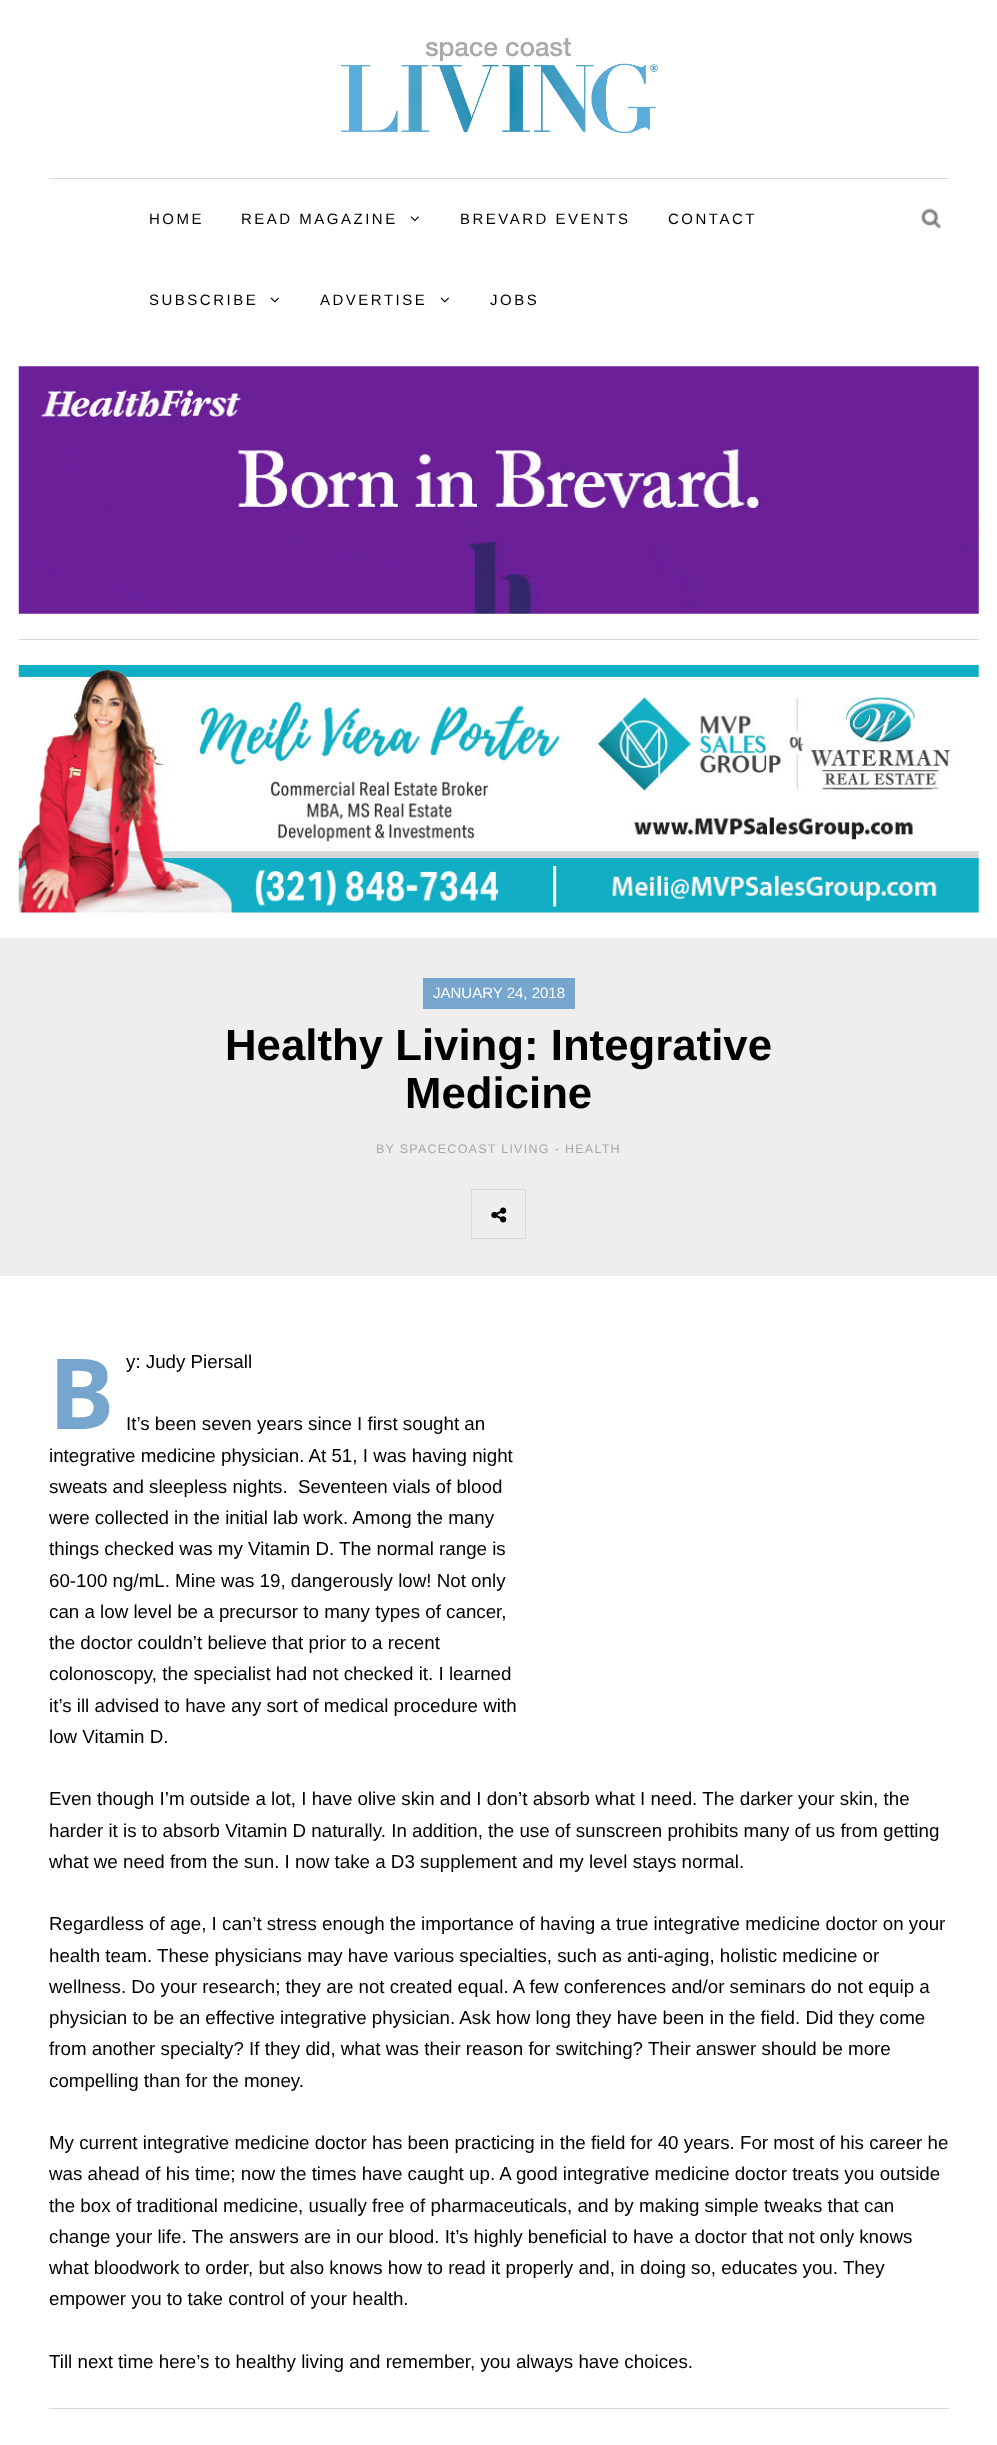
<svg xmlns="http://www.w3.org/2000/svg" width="997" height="2445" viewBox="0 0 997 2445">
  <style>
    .t1 { font: 15px Liberation Sans; letter-spacing: 2.5px; fill: #000; }
    .t2 { font: 15px Liberation Sans; fill: #fff; }
    .t3 { font: bold 43.75px Liberation Sans; fill: #000; }
    .t4 { font: 12.5px Liberation Sans; letter-spacing: 1.25px; fill: #a6a7a8; }
    .t5 { font: bold 98px Noto Sans; fill: #76a5cd; }
    .t6 { font: 18.75px Liberation Sans; fill: #000; }
  </style>
  <rect width="100%" height="100%" fill="#fff"/>
  <image x="341" y="38" width="317" height="96" href="images/1.png"/>
  <rect x="49" y="178" width="900" height="1" fill="#d9d9d9"/>
  <text x="149" y="224" class="t1">HOME</text>
  <text x="241" y="224" class="t1">READ MAGAZINE</text>
  <image x="410" y="216" width="9" height="6" href="images/2.png"/>
  <text x="460" y="224" class="t1">BREVARD EVENTS</text>
  <text x="668" y="224" class="t1">CONTACT</text>
  <text x="149" y="305" class="t1">SUBSCRIBE</text>
  <image x="270" y="297" width="9" height="6" href="images/3.png"/>
  <text x="320" y="305" class="t1">ADVERTISE</text>
  <image x="440" y="297" width="9" height="6" href="images/3.png"/>
  <text x="490" y="305" class="t1">JOBS</text>
  <image x="921" y="208" width="21" height="21" href="images/4.png"/>
  <image x="18" y="366" width="961" height="248" href="images/5.png"/>
  <rect x="19" y="639" width="960" height="1" fill="#d9d9d9"/>
  <image x="18" y="665" width="961" height="248" href="images/6.png"/>
  <rect x="0" y="938" width="997" height="338" fill="#eee"/>
  <rect x="423" y="978" width="152" height="31" fill="#76a5cd"/>
  <text x="433" y="998" class="t2">JANUARY 24, 2018</text>
  <text x="225" y="1060" class="t3">Healthy Living: Integrative</text>
  <text x="405" y="1108" class="t3">Medicine</text>
  <text x="376" y="1153" class="t4">BY SPACECOAST LIVING -</text>
  <text x="565" y="1153" class="t4">HEALTH</text>
  <rect x="471.5" y="1189.5" width="54" height="49" fill="none" stroke="#d9d9d9"/>
  <image x="491" y="1207" width="16" height="16" href="images/7.png"/>
  <text x="49" y="1429" class="t5">B</text>
  <text x="126" y="1368" class="t6">y: Judy Piersall</text>
  <text x="126" y="1430" class="t6">It’s been seven years since I first sought an</text>
  <text x="49" y="1462" class="t6">integrative medicine physician. At 51, I was having night</text>
  <text x="49" y="1493" class="t6">sweats and sleepless nights.</text>
  <text x="298" y="1493" class="t6">Seventeen vials of blood</text>
  <text x="49" y="1524" class="t6">were collected in the initial lab work. Among the many</text>
  <text x="49" y="1555" class="t6">things checked was my Vitamin D.</text>
  <text x="339" y="1555" class="t6">The normal range is</text>
  <text x="49" y="1587" class="t6">60-100 ng/mL. Mine was 19, dangerously low! Not only</text>
  <text x="49" y="1618" class="t6">can a low level be a precursor to many types of cancer,</text>
  <text x="49" y="1649" class="t6">the doctor couldn’t believe that prior to a recent</text>
  <text x="49" y="1680" class="t6">colonoscopy, the specialist had not checked it. I learned</text>
  <text x="49" y="1712" class="t6">it’s ill advised to have any sort of medical procedure with</text>
  <text x="49" y="1743" class="t6">low Vitamin D.</text>
  <text x="49" y="1805" class="t6">Even though I’m outside a lot, I have olive skin and I don’t absorb what I need. The darker your skin, the</text>
  <text x="49" y="1837" class="t6">harder it is to absorb Vitamin D naturally. In addition, the use of sunscreen prohibits many of us from getting</text>
  <text x="49" y="1868" class="t6">what we need from the sun. I now take a D3 supplement and my level stays normal.</text>
  <text x="49" y="1930" class="t6">Regardless of age, I can’t stress enough the importance of having a true integrative medicine doctor on your</text>
  <text x="49" y="1962" class="t6">health team. These physicians may have various specialties, such as anti-aging, holistic medicine or</text>
  <text x="49" y="1993" class="t6">wellness. Do your research; they are not created equal. A few conferences and/or seminars do not equip a</text>
  <text x="49" y="2024" class="t6">physician to be an effective integrative physician. Ask how long they have been in the field. Did they come</text>
  <text x="49" y="2055" class="t6">from another specialty? If they did, what was their reason for switching? Their answer should be more</text>
  <text x="49" y="2087" class="t6">compelling than for the money.</text>
  <text x="49" y="2149" class="t6">My current integrative medicine doctor has been practicing in the field for 40 years. For most of his career he</text>
  <text x="49" y="2180" class="t6">was ahead of his time; now the times have caught up. A good integrative medicine doctor treats you outside</text>
  <text x="49" y="2212" class="t6">the box of traditional medicine, usually free of pharmaceuticals, and by making simple tweaks that can</text>
  <text x="49" y="2243" class="t6">change your life. The answers are in our blood. It’s highly beneficial to have a doctor that not only knows</text>
  <text x="49" y="2274" class="t6">what bloodwork to order, but also knows how to read it properly and, in doing so, educates you. They</text>
  <text x="49" y="2305" class="t6">empower you to take control of your health.</text>
  <text x="49" y="2368" class="t6">Till next time here’s to healthy living and remember, you always have choices.</text>
  <rect x="49" y="2408" width="900" height="1" fill="#d9d9d9"/>
</svg>
